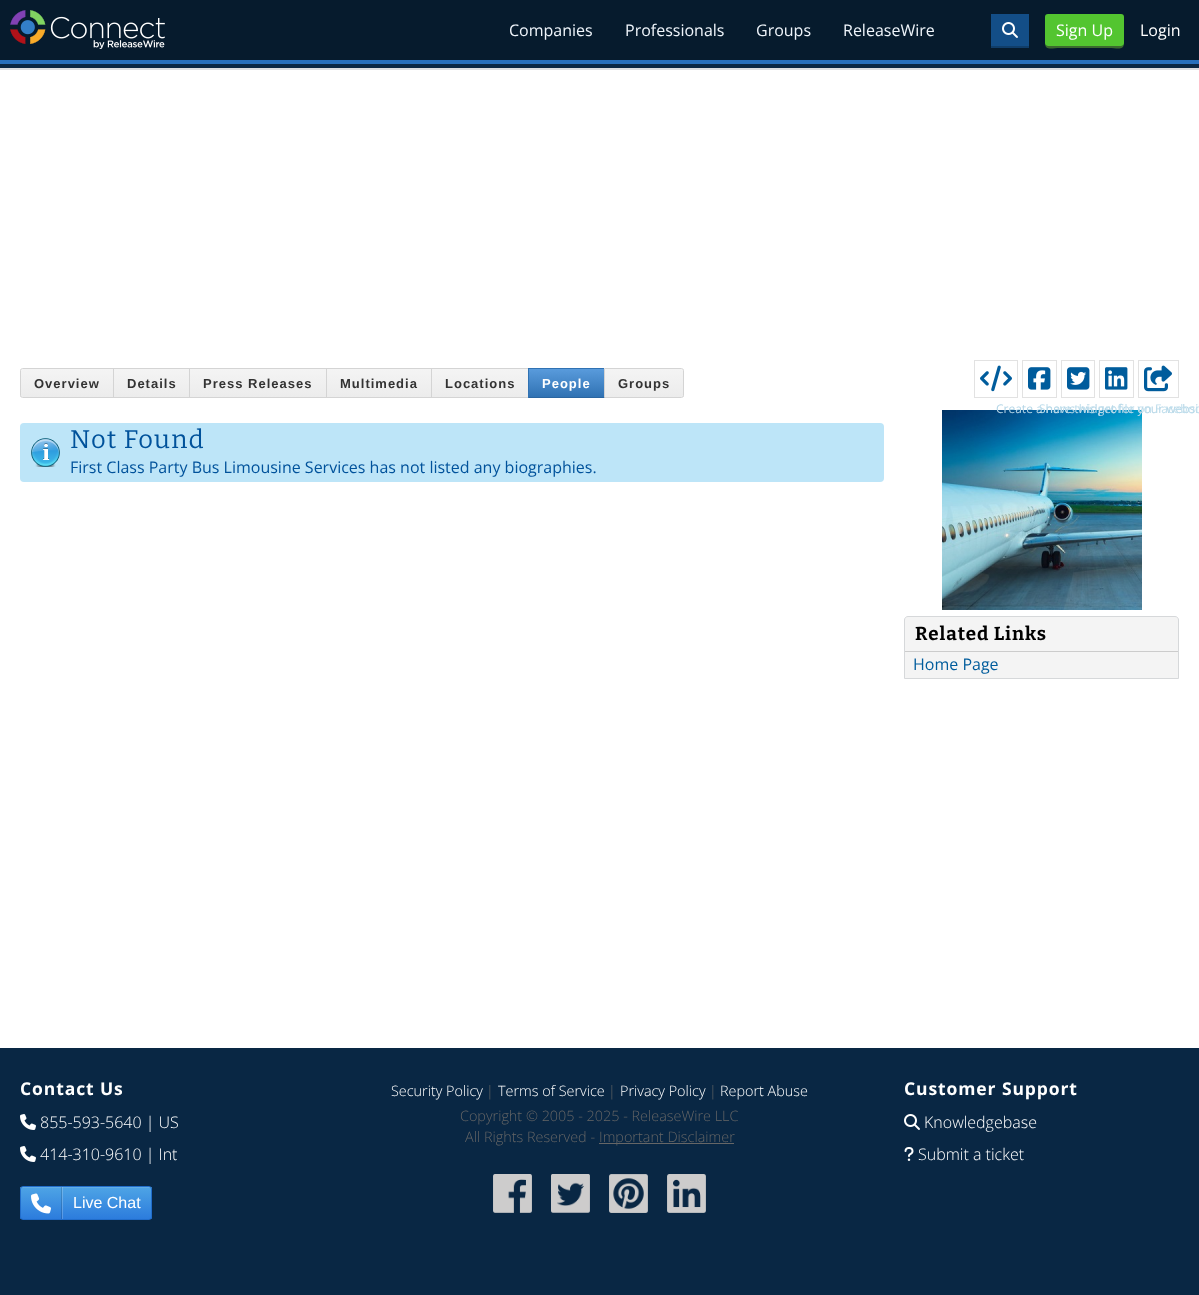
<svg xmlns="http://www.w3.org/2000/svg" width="1199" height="1295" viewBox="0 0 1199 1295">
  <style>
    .t1 { font: 16px Open Sans; fill: #eff5fb; }
    .t2 { font: 16px Open Sans; fill: #fff; }
    .t3 { font: bold 13px Liberation Sans; letter-spacing: 1px; fill: #333; }
    .t4 { font: bold 13px Liberation Sans; letter-spacing: 1px; fill: #fff; }
    .t5 { font: 25.5px Bitter; letter-spacing: 1.25px; fill: #00529b; }
    .t6 { font: 16px Open Sans; fill: #00529b; }
    .t7 { font: 12px Open Sans; fill: #b3d5e6; }
    .t8 { font: 12px Open Sans; fill: #bfdeec; }
    .t9 { font: bold 18.75px Bitter; letter-spacing: 1px; fill: #000; }
    .t10 { font: 16px Open Sans; fill: #005c9c; }
    .t11 { font: bold 17.5px Open Sans; letter-spacing: 0.9px; fill: #fff; }
    .t12 { font: 300 16px Open Sans; fill: #fff; }
    .t13 { font: 16px Liberation Sans; fill: #fff; }
    .t14 { font: 300 14.4px Open Sans; fill: #fff; }
    .t15 { font: 300 14.4px Open Sans; fill: #666; }
  </style>
  <defs>
    <linearGradient id="g1" gradientUnits="userSpaceOnUse" x1="67" y1="369" x2="67" y2="397"><stop offset="0" stop-color="#f4f4f4"/><stop offset="1" stop-color="#ececec"/></linearGradient>
    <linearGradient id="g2" gradientUnits="userSpaceOnUse" x1="152" y1="369" x2="152" y2="397"><stop offset="0" stop-color="#f4f4f4"/><stop offset="1" stop-color="#ececec"/></linearGradient>
    <linearGradient id="g3" gradientUnits="userSpaceOnUse" x1="258" y1="369" x2="258" y2="397"><stop offset="0" stop-color="#f4f4f4"/><stop offset="1" stop-color="#ececec"/></linearGradient>
    <linearGradient id="g4" gradientUnits="userSpaceOnUse" x1="379" y1="369" x2="379" y2="397"><stop offset="0" stop-color="#f4f4f4"/><stop offset="1" stop-color="#ececec"/></linearGradient>
    <linearGradient id="g5" gradientUnits="userSpaceOnUse" x1="480" y1="369" x2="480" y2="397"><stop offset="0" stop-color="#f4f4f4"/><stop offset="1" stop-color="#ececec"/></linearGradient>
    <linearGradient id="g6" gradientUnits="userSpaceOnUse" x1="567" y1="369" x2="567" y2="397"><stop offset="0" stop-color="#599bdc"/><stop offset="1" stop-color="#3072b3"/></linearGradient>
    <linearGradient id="g7" gradientUnits="userSpaceOnUse" x1="644" y1="369" x2="644" y2="397"><stop offset="0" stop-color="#f4f4f4"/><stop offset="1" stop-color="#ececec"/></linearGradient>
    <clipPath id="clip1"><rect x="20" y="1186" width="132" height="34" rx="3"/></clipPath>
    <linearGradient id="g8" gradientUnits="userSpaceOnUse" x1="86" y1="1187" x2="86" y2="1219"><stop offset="0" stop-color="#79b8e5"/><stop offset="0.03" stop-color="#4da3e5"/><stop offset="1" stop-color="#2c7cdd"/></linearGradient>
    <linearGradient id="g9" gradientUnits="userSpaceOnUse" x1="86" y1="1187" x2="86" y2="1219"><stop offset="0" stop-color="#94c6ea"/><stop offset="0.03" stop-color="#71b5ea"/><stop offset="1" stop-color="#5696e4"/></linearGradient>
    <linearGradient id="g10" gradientUnits="userSpaceOnUse" x1="86" y1="1187" x2="86" y2="1219"><stop offset="0" stop-color="#679cc3"/><stop offset="0.03" stop-color="#418bc3"/><stop offset="1" stop-color="#2569bc"/></linearGradient>
  </defs>
  <rect width="100%" height="100%" fill="#fff"/>
  <rect x="0" y="0" width="1199" height="60" fill="#061b2d"/>
  <rect x="0" y="60" width="1199" height="4" fill="#266fbc"/>
  <image x="10" y="10" width="155" height="39" href="images/1.png"/>
  <text x="509" y="36" class="t1">Companies</text>
  <text x="625" y="36" class="t1">Professionals</text>
  <text x="756" y="36" class="t1">Groups</text>
  <text x="843" y="36" class="t1">ReleaseWire</text>
  <rect x="991" y="46" width="38" height="2" fill="#103e6a"/>
  <rect x="991" y="14" width="38" height="32" fill="#134e87"/>
  <image x="1002" y="22" width="16" height="16" href="images/2.png"/>
  <path d="M1045 43C1045 51 1052 48 1060 48H1109C1117 48 1124 51 1124 43C1124 45 1123 46 1121 46H1048C1046 46 1045 45 1045 43Z" fill="#3b6a2e"/>
  <rect x="1045" y="14" width="79" height="32" rx="3" fill="#53c530"/>
  <text x="1056" y="36" class="t2">Sign Up</text>
  <text x="1140" y="36" class="t2">Login</text>
  <rect x="0" y="64" width="1199" height="4" fill="#092744"/>
  <rect x="0" y="68" width="1199" height="2" fill="#dadde0"/>
  <rect x="20" y="369" width="93" height="28" fill="url(#g1)"/>
  <path d="M22.5 368.5H113.5V397.5H22.5C21.5 397.5 20.5 396.5 20.5 395.5V370.5C20.5 369.5 21.5 368.5 22.5 368.5Z" fill="none" stroke="#d4d4d4"/>
  <text x="34" y="388" class="t3">Overview</text>
  <rect x="114" y="369" width="75" height="28" fill="url(#g2)"/>
  <rect x="113.5" y="368.5" width="76" height="29" fill="none" stroke="#d4d4d4"/>
  <text x="127" y="388" class="t3">Details</text>
  <rect x="190" y="369" width="136" height="28" fill="url(#g3)"/>
  <rect x="189.5" y="368.5" width="137" height="29" fill="none" stroke="#d4d4d4"/>
  <text x="203" y="388" class="t3">Press Releases</text>
  <rect x="327" y="369" width="104" height="28" fill="url(#g4)"/>
  <rect x="326.5" y="368.5" width="105" height="29" fill="none" stroke="#d4d4d4"/>
  <text x="340" y="388" class="t3">Multimedia</text>
  <rect x="432" y="369" width="96" height="28" fill="url(#g5)"/>
  <rect x="431.5" y="368.5" width="97" height="29" fill="none" stroke="#d4d4d4"/>
  <text x="445" y="388" class="t3">Locations</text>
  <rect x="529" y="368" width="75" height="1" fill="#3072b3"/>
  <rect x="529" y="369" width="75" height="28" fill="url(#g6)"/>
  <rect x="528" y="397" width="77" height="1" fill="#2a65a0"/>
  <rect x="528" y="368" width="1" height="30" fill="#3072b3"/>
  <text x="542" y="388" class="t4">People</text>
  <rect x="605" y="369" width="79" height="28" fill="url(#g7)"/>
  <path d="M604.5 368.5H681.5C682.5 368.5 683.5 369.5 683.5 370.5V395.5C683.5 396.5 682.5 397.5 681.5 397.5H604.5Z" fill="none" stroke="#d4d4d4"/>
  <text x="618" y="388" class="t3">Groups</text>
  <rect x="20" y="423" width="864" height="59" rx="4" fill="#bde5f8"/>
  <image x="31" y="438" width="29" height="29" href="images/3.png"/>
  <text x="70" y="448" class="t5">Not Found</text>
  <text x="70" y="473" class="t6">First Class Party Bus Limousine Services has not listed any biographies.</text>
  <rect x="1061.5" y="360.5" width="33" height="37" fill="none" stroke="#e2e2e2"/>
  <image x="1067" y="367" width="23" height="23" href="images/4.png"/>
  <rect x="1099.5" y="360.5" width="34" height="37" fill="none" stroke="#e2e2e2"/>
  <image x="1105" y="367" width="23" height="23" href="images/5.png"/>
  <rect x="1138.5" y="360.5" width="40" height="37" fill="none" stroke="#e2e2e2"/>
  <image x="1144" y="365" width="28" height="27" href="images/6.png"/>
  <rect x="974.5" y="360.5" width="43" height="37" fill="none" stroke="#e2e2e2"/>
  <image x="980" y="365" width="32" height="27" href="images/7.png"/>
  <image x="942" y="410" width="200" height="200" href="images/9.png"/>
  <text x="996" y="413" class="t7">Create a news widget for your websi</text>
  <rect x="1022.5" y="360.5" width="34" height="37" fill="none" stroke="#e2e2e2"/>
  <image x="1028" y="367" width="23" height="23" href="images/8.png"/>
  <text x="1039" y="413" class="t8">Share this profile on Faceboo</text>
  <path d="M908 616.5H1175C1177 616.5 1178.5 618 1178.5 620V678.5H904.5V620C904.5 618 906 616.5 908 616.5Z" fill="#f4f4f4" stroke="#d6d8da"/>
  <rect x="905" y="651" width="273" height="1" fill="#ccc"/>
  <text x="915" y="640" class="t9">Related Links</text>
  <text x="913" y="670" class="t10">Home Page</text>
  <rect x="0" y="1048" width="1199" height="247" fill="#092744"/>
  <text x="20" y="1095" class="t11">Contact Us</text>
  <image x="20" y="1114" width="16" height="16" href="images/10.png"/>
  <text x="40" y="1128" class="t12">855-593-5640 | US</text>
  <image x="20" y="1146" width="16" height="16" href="images/10.png"/>
  <text x="40" y="1160" class="t12">414-310-9610 | Int</text>
  <g clip-path="url(#clip1)">
    <rect x="20" y="1187" width="132" height="32" fill="url(#g8)"/>
  </g>
  <rect x="62" y="1187" width="1" height="32" fill="url(#g9)"/>
  <rect x="61" y="1187" width="1" height="32" fill="url(#g10)"/>
  <rect x="20.5" y="1186.5" width="131" height="33" rx="2.5" fill="none" stroke="#216dcb"/>
  <image x="31" y="1193" width="20" height="21" href="images/11.png"/>
  <text x="73" y="1208" class="t13">Live Chat</text>
  <text x="391" y="1096" class="t14">Security Policy</text>
  <text x="486" y="1096" class="t15">|</text>
  <text x="498" y="1096" class="t14">Terms of Service</text>
  <text x="608" y="1096" class="t15">|</text>
  <text x="620" y="1096" class="t14">Privacy Policy</text>
  <text x="709" y="1096" class="t15">|</text>
  <text x="720" y="1096" class="t14">Report Abuse</text>
  <text x="460" y="1121" class="t15">Copyright © 2005 - 2025 - ReleaseWire LLC</text>
  <text x="465" y="1142" class="t15">All Rights Reserved -</text>
  <rect x="599" y="1143" width="135" height="1" fill="#666"/>
  <text x="599" y="1142" class="t15">Important Disclaimer</text>
  <image x="493" y="1174" width="39" height="39" href="images/12.png"/>
  <image x="551" y="1174" width="39" height="39" href="images/13.png"/>
  <image x="609" y="1174" width="39" height="39" href="images/14.png"/>
  <image x="667" y="1174" width="39" height="39" href="images/15.png"/>
  <text x="904" y="1095" class="t11">Customer Support</text>
  <image x="904" y="1114" width="16" height="16" href="images/16.png"/>
  <text x="924" y="1128" class="t12">Knowledgebase</text>
  <image x="904" y="1147" width="10" height="14" href="images/17.png"/>
  <text x="918" y="1160" class="t12">Submit a ticket</text>
</svg>
